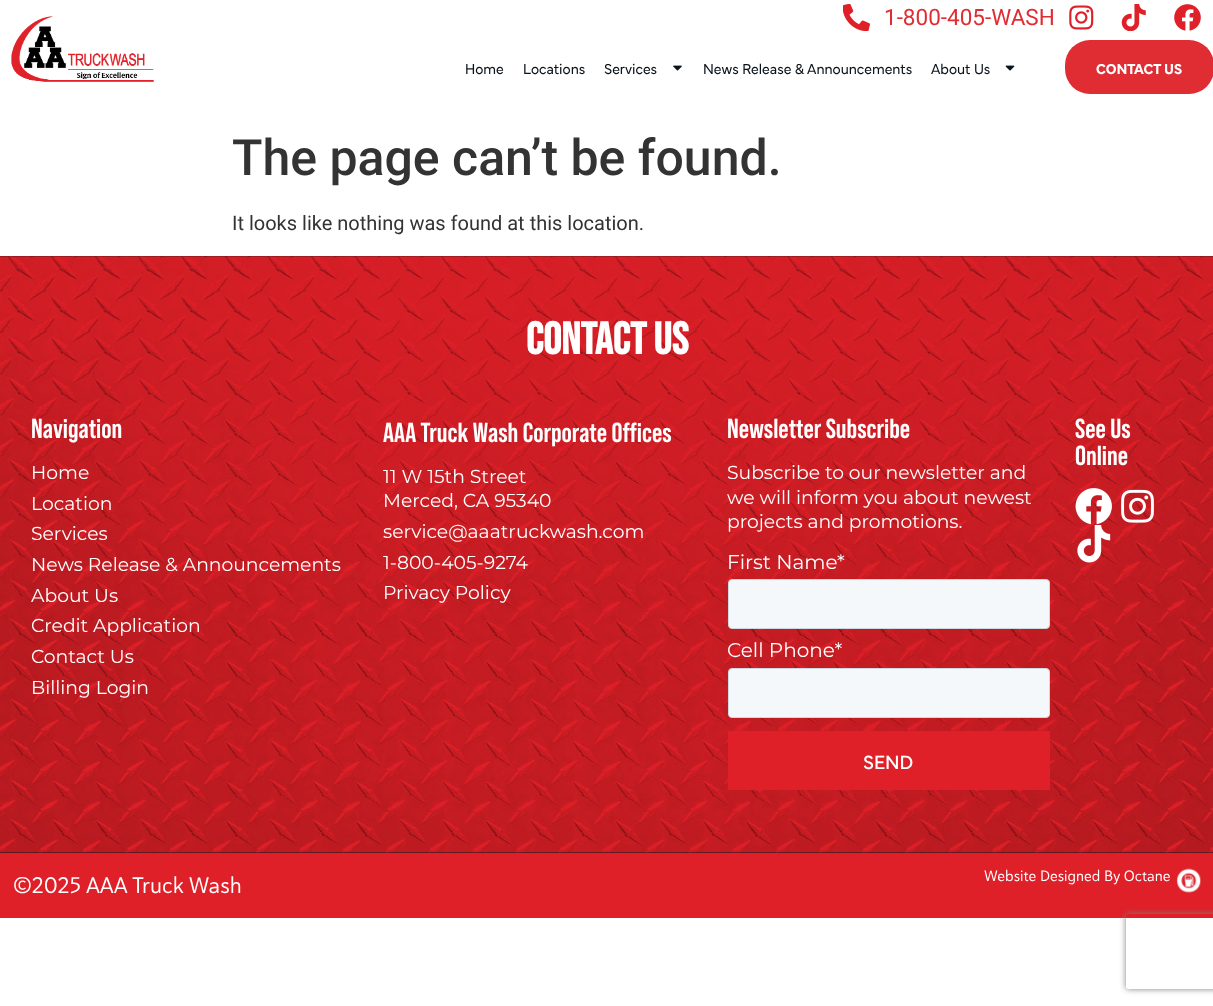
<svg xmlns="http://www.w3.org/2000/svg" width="1213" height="1006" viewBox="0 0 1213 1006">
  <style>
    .t1 { font: 22.5px Roboto; fill: #e02c33; }
    .t2 { font: 15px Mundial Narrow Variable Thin; fill: #0b141c; }
    .t3 { font: bold 15px Mundial Narrow Variable Thin; fill: #fff; }
    .t4 { font: 500 50px Roboto; fill: #333; }
    .t5 { font: 20px Roboto; fill: #333; }
    .t6 { font: bold 45px Bebas Neue; fill: #fff; }
    .t7 { font: bold 27.5px 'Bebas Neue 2'; fill: #fff; }
    .t8 { font: 18.75px Montserrat; fill: #fff; }
    .t9 { font: 20px Montserrat; fill: #fff; }
    .t10 { font: 500 20px Mundial Narrow Variable Thin; fill: #fff; }
    .t11 { font: 500 22.5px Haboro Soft; fill: #fff; }
    .t12 { font: 500 15px Haboro Soft; fill: #fff; }
  </style>
  <defs>
    <clipPath id="clip1"><path d="M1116 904H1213V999H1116ZM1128.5 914H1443.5C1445 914 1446 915 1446 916.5V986.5C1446 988 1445 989 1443.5 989H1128.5C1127 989 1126 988 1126 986.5V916.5C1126 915 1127 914 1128.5 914Z" clip-rule="evenodd"/></clipPath>
  </defs>
  <rect width="100%" height="100%" fill="#fff"/>
  <image x="843" y="4" width="27" height="27" href="images/1.png"/>
  <text x="884" y="25" class="t1">1-800-405-WASH</text>
  <image x="1069" y="5" width="25" height="25" href="images/2.png"/>
  <image x="1121" y="4" width="25" height="27" href="images/3.png"/>
  <image x="1174" y="4" width="27" height="27" href="images/4.png"/>
  <image x="11" y="16" width="143" height="66" href="images/5.png"/>
  <text x="465" y="74" class="t2">Home</text>
  <text x="523" y="74" class="t2">Locations</text>
  <text x="604" y="74" class="t2">Services</text>
  <image x="673" y="65" width="9" height="6" href="images/6.png"/>
  <text x="703" y="74" class="t2">News Release &amp; Announcements</text>
  <text x="931" y="74" class="t2">About Us</text>
  <image x="1005" y="65" width="10" height="6" href="images/7.png"/>
  <rect x="1065" y="40" width="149" height="54" rx="25" fill="#e02c33"/>
  <text x="1096" y="74" class="t3">CONTACT US</text>
  <text x="232" y="175" class="t4">The page can’t be found.</text>
  <text x="232" y="230" class="t5">It looks like nothing was found at this location.</text>
  <rect x="0" y="256" width="1213" height="597" fill="#0b141c"/>
  <image x="0" y="256" width="1213" height="597" href="images/8.png"/>
  <text x="526" y="354" class="t6">Contact Us</text>
  <text x="31" y="438" class="t7">Navigation</text>
  <text x="31" y="479" class="t8">Home</text>
  <text x="31" y="510" class="t8">Location</text>
  <text x="31" y="540" class="t8">Services</text>
  <text x="31" y="571" class="t8">News Release &amp; Announcements</text>
  <text x="31" y="602" class="t8">About Us</text>
  <text x="31" y="632" class="t8">Credit Application</text>
  <text x="31" y="663" class="t8">Contact Us</text>
  <text x="31" y="694" class="t8">Billing Login</text>
  <text x="383" y="442" class="t7">AAA Truck Wash Corporate Offices</text>
  <text x="383" y="483" class="t8">11 W 15th Street</text>
  <text x="383" y="507" class="t8">Merced, CA 95340</text>
  <text x="383" y="538" class="t8">service@aaatruckwash.com</text>
  <text x="383" y="569" class="t8">1-800-405-9274</text>
  <text x="383" y="599" class="t8">Privacy Policy</text>
  <text x="727" y="438" class="t7">Newsletter Subscribe</text>
  <text x="727" y="479" class="t8">Subscribe to our newsletter and</text>
  <text x="727" y="504" class="t8">we will inform you about newest</text>
  <text x="727" y="528" class="t8">projects and promotions.</text>
  <text x="727" y="569" class="t9">First Name*</text>
  <rect x="728.5" y="579.5" width="321" height="49" rx="3.5" fill="#f5f8fa" stroke="#cfd8de"/>
  <text x="727" y="657" class="t9">Cell Phone*</text>
  <rect x="728.5" y="668.5" width="321" height="49" rx="3.5" fill="#f5f8fa" stroke="#cfd8de"/>
  <rect x="728" y="731" width="322" height="59" fill="#df2028"/>
  <text x="863" y="769" class="t10">SEND</text>
  <rect x="0" y="853" width="1213" height="65" fill="#df2028"/>
  <g clip-path="url(#clip1)">
    <rect x="1126" y="914" width="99" height="75" rx="2.5" fill="#808080" filter="blur(3px)"/>
  </g>
  <text x="1075" y="438" class="t7">See Us</text>
  <text x="1075" y="465" class="t7">Online</text>
  <image x="1075" y="488" width="37" height="37" href="images/9.png"/>
  <image x="1121" y="489" width="33" height="34" href="images/10.png"/>
  <image x="1077" y="525" width="34" height="38" href="images/11.png"/>
  <text x="13" y="893" class="t11">©2025 AAA Truck Wash</text>
  <text x="984" y="881" class="t12">Website Designed By Octane</text>
  <image x="1176" y="868" width="25" height="25" href="images/12.png"/>
</svg>
